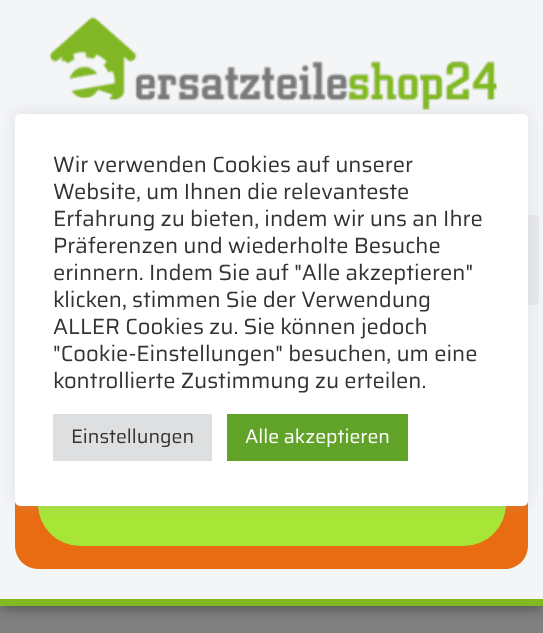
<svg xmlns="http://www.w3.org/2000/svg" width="543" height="633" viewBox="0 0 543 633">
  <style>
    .t1 { font: 22px Saira; fill: #333; }
    .t2 { font: 19.5px Saira; fill: #333; }
    .t3 { font: 19.5px Saira; fill: #fff; }
  </style>
  <rect width="100%" height="100%" fill="#808080"/>
  <rect x="0" y="0" width="543" height="606" fill="#00000080" filter="blur(7.5px)"/>
  <rect x="0" y="0" width="543" height="599" fill="#f4f5f7"/>
  <image x="49" y="16" width="448" height="94" href="images/1.png"/>
  <rect x="449" y="215" width="90" height="90" rx="5" fill="#e8e9eb"/>
  <rect x="15" y="339" width="513" height="230" rx="23" fill="#e96c12"/>
  <rect x="38" y="462" width="468" height="84" rx="42" fill="#a7e537"/>
  <rect x="0" y="599" width="543" height="7" fill="#82b820"/>
  <rect x="15" y="113" width="513" height="391" rx="5" fill="#acabab4d" filter="blur(7.5px)"/>
  <rect x="15" y="114" width="513" height="392" rx="5" fill="#fff"/>
  <text x="53" y="172" class="t1">Wir verwenden Cookies auf unserer</text>
  <text x="53" y="199" class="t1">Website, um Ihnen die relevanteste</text>
  <text x="53" y="226" class="t1">Erfahrung zu bieten, indem wir uns an Ihre</text>
  <text x="53" y="253" class="t1">Präferenzen und wiederholte Besuche</text>
  <text x="53" y="280" class="t1">erinnern. Indem Sie auf "Alle akzeptieren"</text>
  <text x="53" y="307" class="t1">klicken, stimmen Sie der Verwendung</text>
  <text x="53" y="334" class="t1">ALLER Cookies zu. Sie können jedoch</text>
  <text x="53" y="361" class="t1">"Cookie-Einstellungen" besuchen, um eine</text>
  <text x="53" y="388" class="t1">kontrollierte Zustimmung zu erteilen.</text>
  <rect x="53" y="414" width="159" height="47" fill="#dedfe0"/>
  <text x="71" y="443" class="t2">Einstellungen</text>
  <rect x="227" y="414" width="181" height="47" fill="#61a229"/>
  <text x="245" y="443" class="t3">Alle akzeptieren</text>
</svg>
